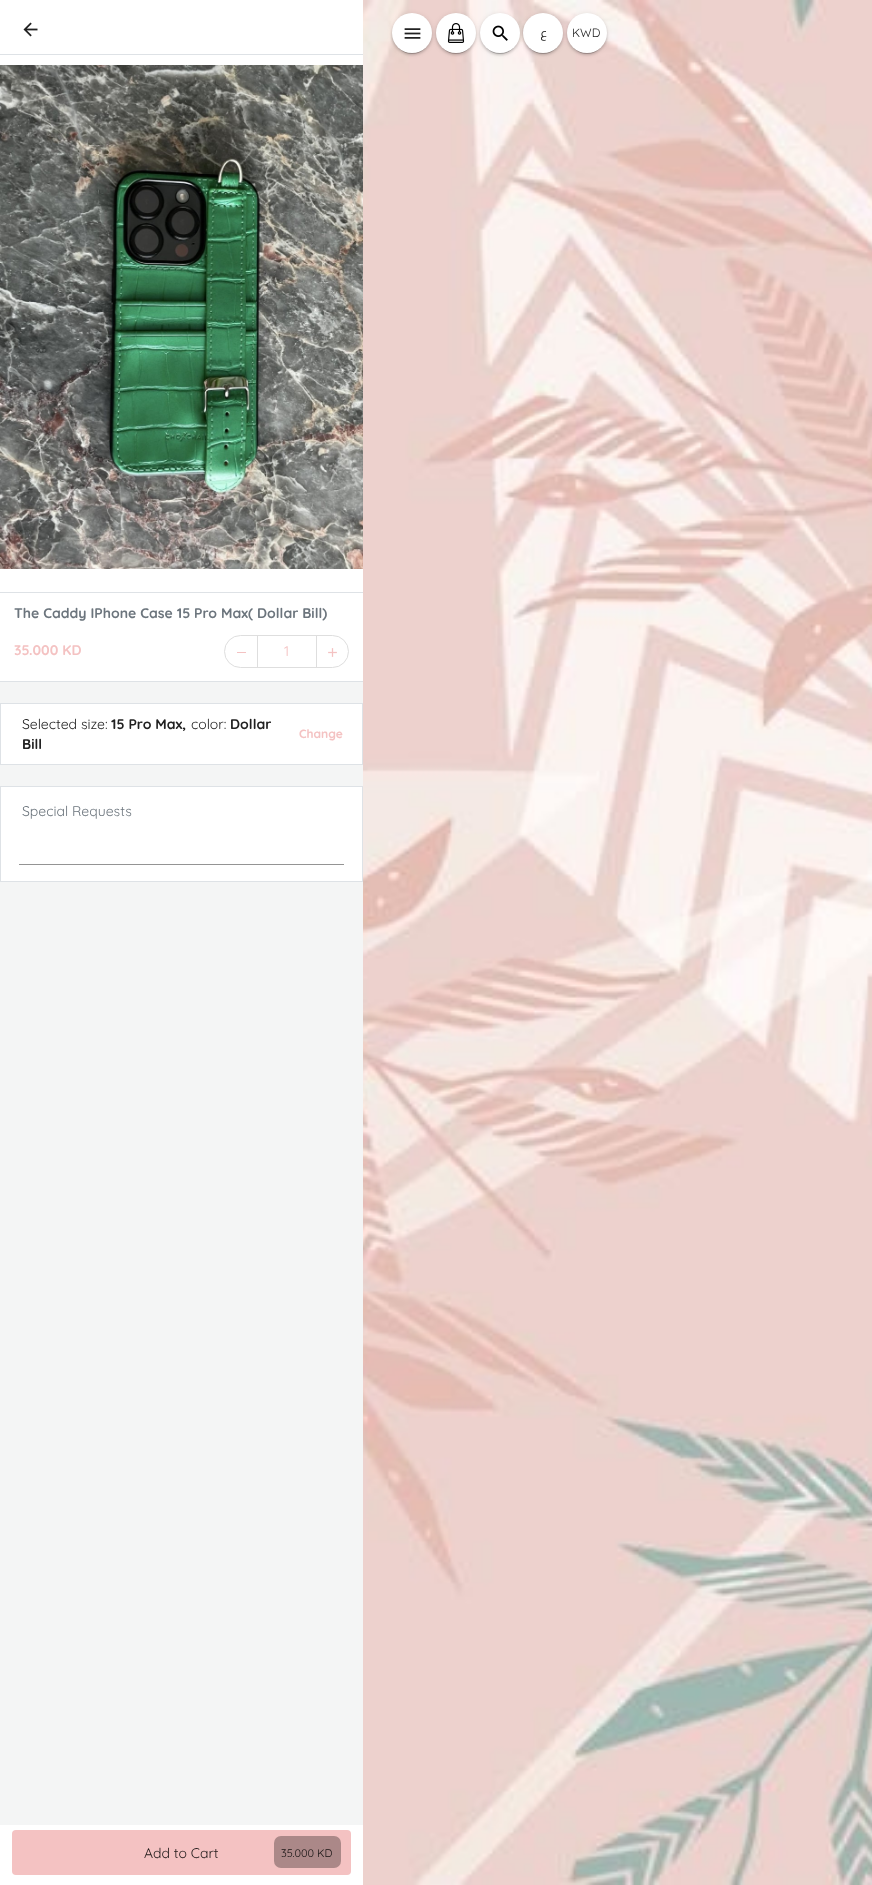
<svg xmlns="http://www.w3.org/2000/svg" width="872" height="1885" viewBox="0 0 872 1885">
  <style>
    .t1 { font: 12px Cairo; direction: rtl; fill: #212121; }
    .t2 { font: 300 12px Quicksand; fill: #212121; }
    .t3 { font: 300 14px 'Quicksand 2'; fill: #6c757d; }
    .t4 { font: 300 14px 'Quicksand 2'; fill: #f4c2c2; }
    .t5 { font: 300 14px Quicksand; fill: #f4c2c2; }
    .t6 { font: 300 14px Quicksand; fill: #212121; }
    .t7 { font: 300 14px 'Quicksand 2'; fill: #212121; }
    .t8 { font: 300 12px 'Quicksand 2'; fill: #f4c2c2; }
    .t9 { font: 300 14px Quicksand; fill: #6c757d; }
    .t10 { font: 300 14px Quicksand; fill: #201919; }
    .t11 { font: 300 11px Quicksand; fill: #161212; }
  </style>
  <rect width="100%" height="100%" fill="#f4f5f5"/>
  <image x="363" y="0" width="509" height="1885" href="images/1.png"/>
  <rect x="392" y="14" width="40" height="40" rx="20" fill="#0000001f" filter="blur(2.5px)"/>
  <rect x="392" y="15" width="40" height="40" rx="20" fill="#00000024" filter="blur(1px)"/>
  <rect x="394" y="18" width="36" height="36" rx="18" fill="#00000033" filter="blur(0.5px)"/>
  <circle cx="412" cy="33" r="20" fill="#fff"/>
  <image x="404" y="28" width="17" height="11" href="images/2.png"/>
  <rect x="567" y="14" width="40" height="40" rx="20" fill="#0000001f" filter="blur(2.5px)"/>
  <rect x="567" y="15" width="40" height="40" rx="20" fill="#00000024" filter="blur(1px)"/>
  <rect x="569" y="18" width="36" height="36" rx="18" fill="#00000033" filter="blur(0.5px)"/>
  <circle cx="587" cy="33" r="20" fill="#fff"/>
  <rect x="523" y="14" width="40" height="40" rx="20" fill="#0000001f" filter="blur(2.5px)"/>
  <rect x="523" y="15" width="40" height="40" rx="20" fill="#00000024" filter="blur(1px)"/>
  <rect x="525" y="18" width="36" height="36" rx="18" fill="#00000033" filter="blur(0.5px)"/>
  <circle cx="543" cy="33" r="20" fill="#fff"/>
  <rect x="480" y="14" width="40" height="40" rx="20" fill="#0000001f" filter="blur(2.5px)"/>
  <rect x="480" y="15" width="40" height="40" rx="20" fill="#00000024" filter="blur(1px)"/>
  <rect x="482" y="18" width="36" height="36" rx="18" fill="#00000033" filter="blur(0.5px)"/>
  <circle cx="500" cy="33" r="20" fill="#fff"/>
  <rect x="436" y="14" width="40" height="40" rx="20" fill="#0000001f" filter="blur(2.5px)"/>
  <rect x="436" y="15" width="40" height="40" rx="20" fill="#00000024" filter="blur(1px)"/>
  <rect x="438" y="18" width="36" height="36" rx="18" fill="#00000033" filter="blur(0.5px)"/>
  <circle cx="456" cy="33" r="20" fill="#fff"/>
  <image x="447" y="23" width="18" height="20" href="images/3.png"/>
  <image x="492" y="25" width="16" height="16" href="images/4.png"/>
  <text x="547" y="37" class="t1">ع</text>
  <text x="572" y="37" class="t2">KWD</text>
  <rect x="0" y="0" width="363" height="54" fill="#fff"/>
  <rect x="0" y="54" width="363" height="1" fill="#dee2e6"/>
  <image x="23" y="22" width="15" height="15" href="images/5.png"/>
  <rect x="0" y="55" width="363" height="537" fill="#fff"/>
  <image x="0" y="65" width="363" height="504" href="images/6.png"/>
  <rect x="0" y="593" width="363" height="88" fill="#fff"/>
  <rect x="0" y="592" width="363" height="1" fill="#dee2e6"/>
  <rect x="0" y="681" width="363" height="1" fill="#dee2e6"/>
  <text x="14" y="618" class="t3">The Caddy IPhone Case 15 Pro Max( Dollar Bill)</text>
  <text x="14" y="655" class="t4">35.000 KD</text>
  <rect x="224.5" y="635.5" width="124" height="32" rx="16" fill="none" stroke="#dedede"/>
  <rect x="237" y="652" width="9" height="1" fill="#f4c2c2"/>
  <rect x="316" y="635" width="1" height="32" fill="#dedede"/>
  <rect x="257" y="635" width="1" height="32" fill="#dedede"/>
  <text x="284" y="656" class="t5">1</text>
  <image x="328" y="648" width="9" height="9" href="images/7.png"/>
  <rect x="0.5" y="703.5" width="362" height="61" fill="#fff" stroke="#dee2e6"/>
  <text x="22" y="729" class="t6">Selected size:</text>
  <text x="111" y="729" class="t7">15 Pro Max,</text>
  <text x="191" y="729" class="t6">color:</text>
  <text x="230" y="729" class="t7">Dollar</text>
  <text x="22" y="749" class="t7">Bill</text>
  <text x="299" y="738" class="t8">Change</text>
  <rect x="0.5" y="786.5" width="362" height="95" fill="#fff" stroke="#dee2e6"/>
  <text x="22" y="816" class="t9">Special Requests</text>
  <rect x="19" y="864" width="325" height="1" fill="#949494"/>
  <rect x="0" y="1825" width="363" height="60" fill="#fff"/>
  <rect x="12" y="1830" width="339" height="45" rx="4" fill="#f4c2c2"/>
  <text x="144" y="1858" class="t10">Add to Cart</text>
  <rect x="274" y="1836" width="67" height="32" rx="7" fill="#ab8888"/>
  <text x="281" y="1857" class="t11">35.000 KD</text>
</svg>
